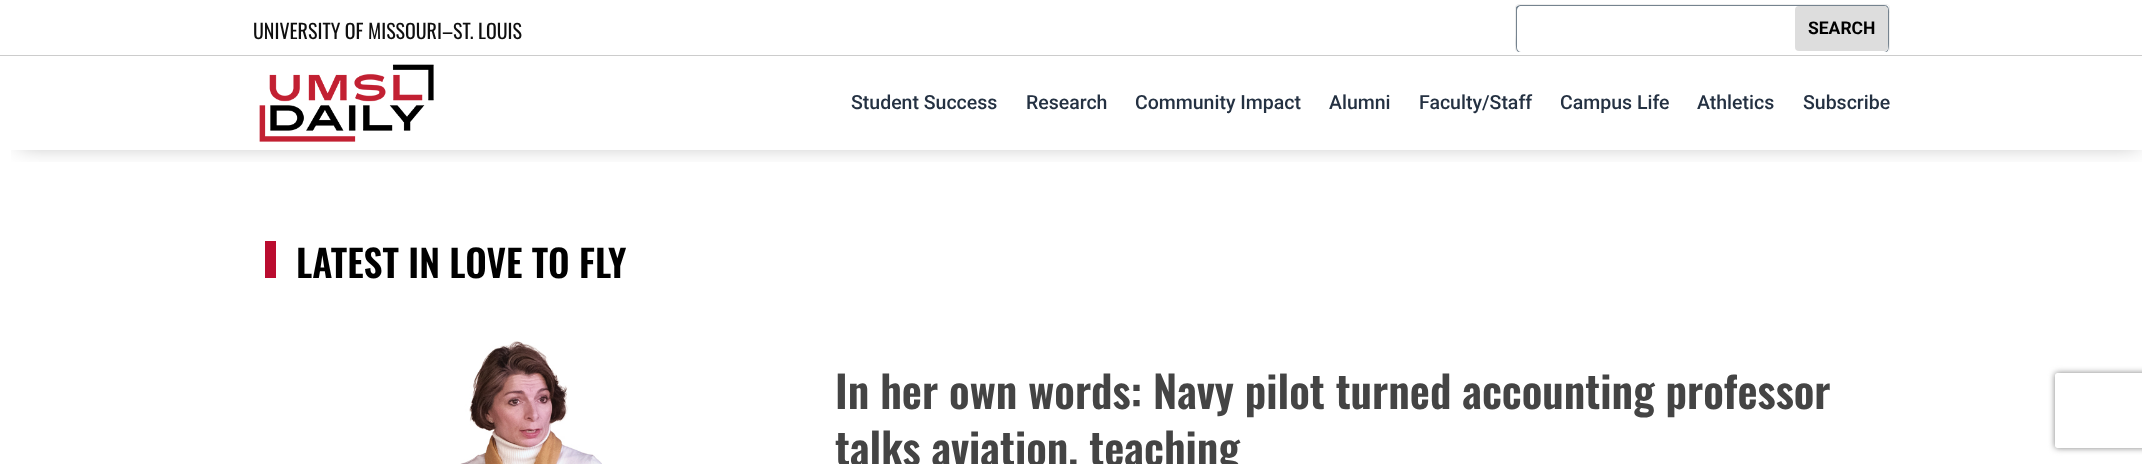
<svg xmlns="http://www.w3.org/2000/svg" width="2142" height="464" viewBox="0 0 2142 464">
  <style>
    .t1 { font: 20px Oswald; fill: #0f0f0f; }
    .t2 { font: bold 17.5px Roboto; fill: #000; }
    .t3 { font: 500 19.5px Roboto; fill: #243142; }
    .t4 { font: 600 37.5px Oswald; fill: #000; }
    .t5 { font: 600 43.75px Oswald; fill: #444; }
  </style>
  <defs>
    <clipPath id="clip1"><rect x="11" y="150" width="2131" height="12"/></clipPath>
    <clipPath id="clip2"><path d="M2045 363H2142V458H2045ZM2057.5 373H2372.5C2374 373 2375 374 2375 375.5V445.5C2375 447 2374 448 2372.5 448H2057.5C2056 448 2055 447 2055 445.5V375.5C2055 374 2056 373 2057.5 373Z" clip-rule="evenodd"/></clipPath>
  </defs>
  <rect width="100%" height="100%" fill="#fff"/>
  <rect x="0" y="55" width="2142" height="1" fill="#ccc"/>
  <text x="253" y="39" class="t1">UNIVERSITY OF MISSOURI–ST. LOUIS</text>
  <path d="M1519 4H1886C1888 4 1890 5 1890 8V49C1890 51 1888 52 1886 52H1519C1517 52 1515 51 1515 49V8C1515 5 1517 4 1519 4ZM1519 5H1886C1888 5 1889 6 1889 8V49C1889 51 1888 52 1886 52H1519C1517 52 1516 51 1516 49V8C1516 6 1517 5 1519 5Z" fill="#eee" fill-rule="evenodd"/>
  <path d="M1519 5C1517 5 1516 6 1516 8V49C1516 51 1517 52 1519 52H1886C1888 52 1889 51 1889 49V8C1889 6 1888 5 1886 5Z" fill="#fff"/>
  <path d="M1521 5C1519 5 1516 6 1516 8V35C1516 43 1515 52 1519 52H1886C1889 52 1889 46 1889 42V15C1889 11 1890 5 1884 5ZM1521 6C1519 6 1517 8 1517 10V48C1517 50 1519 52 1521 52H1884C1886 52 1888 50 1888 48V10C1888 8 1886 6 1884 6Z" fill="#75838f" fill-rule="evenodd"/>
  <rect x="1518" y="6" width="277" height="45" rx="4" fill="#fff"/>
  <rect x="1795" y="6" width="93" height="45" rx="4" fill="#ddd"/>
  <text x="1808" y="34" class="t2">SEARCH</text>
  <g clip-path="url(#clip1)">
    <rect x="20" y="76" width="2118" height="69" fill="#0000004d" filter="blur(11px)"/>
  </g>
  <image x="259" y="64" width="175" height="78" href="images/1.png"/>
  <text x="851" y="109" class="t3">Student Success</text>
  <text x="1026" y="109" class="t3">Research</text>
  <text x="1135" y="109" class="t3">Community Impact</text>
  <text x="1329" y="109" class="t3">Alumni</text>
  <text x="1419" y="109" class="t3">Faculty/Staff</text>
  <text x="1560" y="109" class="t3">Campus Life</text>
  <text x="1697" y="109" class="t3">Athletics</text>
  <text x="1803" y="109" class="t3">Subscribe</text>
  <rect x="265" y="241" width="11" height="37" fill="#ba0c2f"/>
  <text x="296" y="278" class="t4">LATEST IN LOVE TO FLY</text>
  <image x="460" y="341" width="142" height="123" href="images/2.png"/>
  <text x="835" y="409" class="t5">In her own words: Navy pilot turned accounting professor</text>
  <text x="835" y="466" class="t5">talks aviation, teaching</text>
  <g clip-path="url(#clip2)">
    <rect x="2055" y="373" width="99" height="75" rx="2.5" fill="#808080" filter="blur(3px)"/>
  </g>
</svg>
